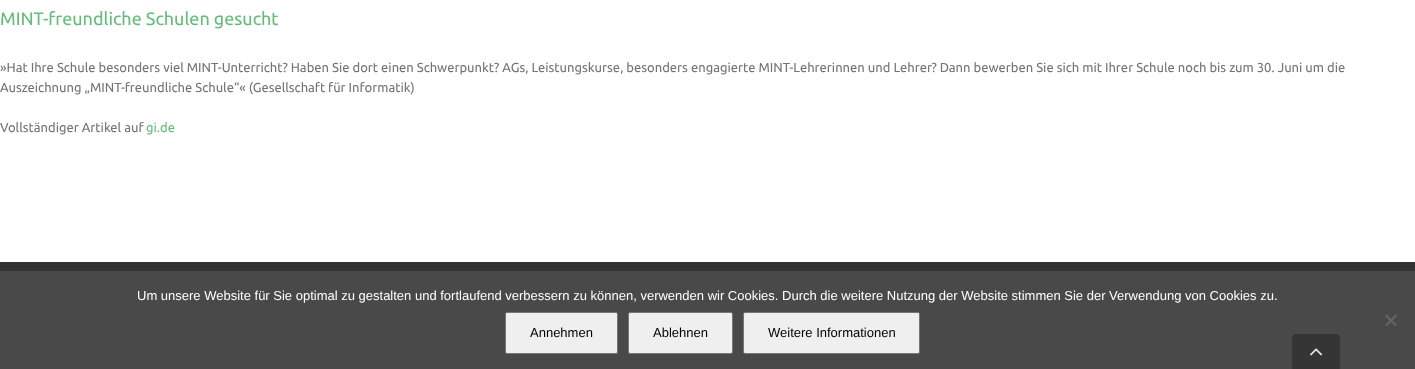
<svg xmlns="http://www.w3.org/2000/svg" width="1415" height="369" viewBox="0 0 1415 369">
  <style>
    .t1 { font: 18px Ubuntu; fill: #65bc7b; }
    .t2 { font: 13px Ubuntu; fill: #747474; }
    .t3 { font: 13px Ubuntu; fill: #65bc7b; }
    .t4 { font: 13px Liberation Sans; fill: #fff; }
    .t5 { font: 13px Liberation Sans; fill: #000; }
  </style>
  <rect width="100%" height="100%" fill="#fff"/>
  <text x="0" y="25" class="t1">MINT-freundliche Schulen gesucht</text>
  <text x="0" y="72" class="t2">»Hat Ihre Schule besonders viel MINT-Unterricht? Haben Sie dort einen Schwerpunkt? AGs, Leistungskurse, besonders engagierte MINT-Lehrerinnen und Lehrer? Dann bewerben Sie sich mit Ihrer Schule noch bis zum 30. Juni um die</text>
  <text x="0" y="92" class="t2">Auszeichnung „MINT-freundliche Schule“« (Gesellschaft für Informatik)</text>
  <text x="0" y="132" class="t2">Vollständiger Artikel auf</text>
  <text x="146" y="132" class="t3">gi.de</text>
  <rect x="0" y="262" width="1415" height="9" fill="#333"/>
  <rect x="0" y="271" width="1415" height="98" fill="#494949"/>
  <text x="137" y="300" class="t4">Um unsere Website für Sie optimal zu gestalten und fortlaufend verbessern zu können, verwenden wir Cookies. Durch die weitere Nutzung der Website stimmen Sie der Verwendung von Cookies zu.</text>
  <path d="M1395.5 314.5L1397 316L1386.5 326.5L1385 325Z" fill="#656565"/>
  <path d="M1385 316L1386.5 314.5L1397 325L1395.5 326.5Z" fill="#656565"/>
  <rect x="505.5" y="312.5" width="112" height="41" rx="1.5" fill="#efefef" stroke="#767676"/>
  <text x="530" y="337" class="t5">Annehmen</text>
  <rect x="628.5" y="312.5" width="104" height="41" rx="1.5" fill="#efefef" stroke="#767676"/>
  <text x="653" y="337" class="t5">Ablehnen</text>
  <rect x="743.5" y="312.5" width="176" height="41" rx="1.5" fill="#efefef" stroke="#767676"/>
  <text x="768" y="337" class="t5">Weitere Informationen</text>
  <path d="M1296 334H1336C1338 334 1340 336 1340 338V369H1292V338C1292 336 1294 334 1296 334Z" fill="#353535"/>
  <image x="1310" y="348" width="13" height="8" href="images/1.png"/>
</svg>
